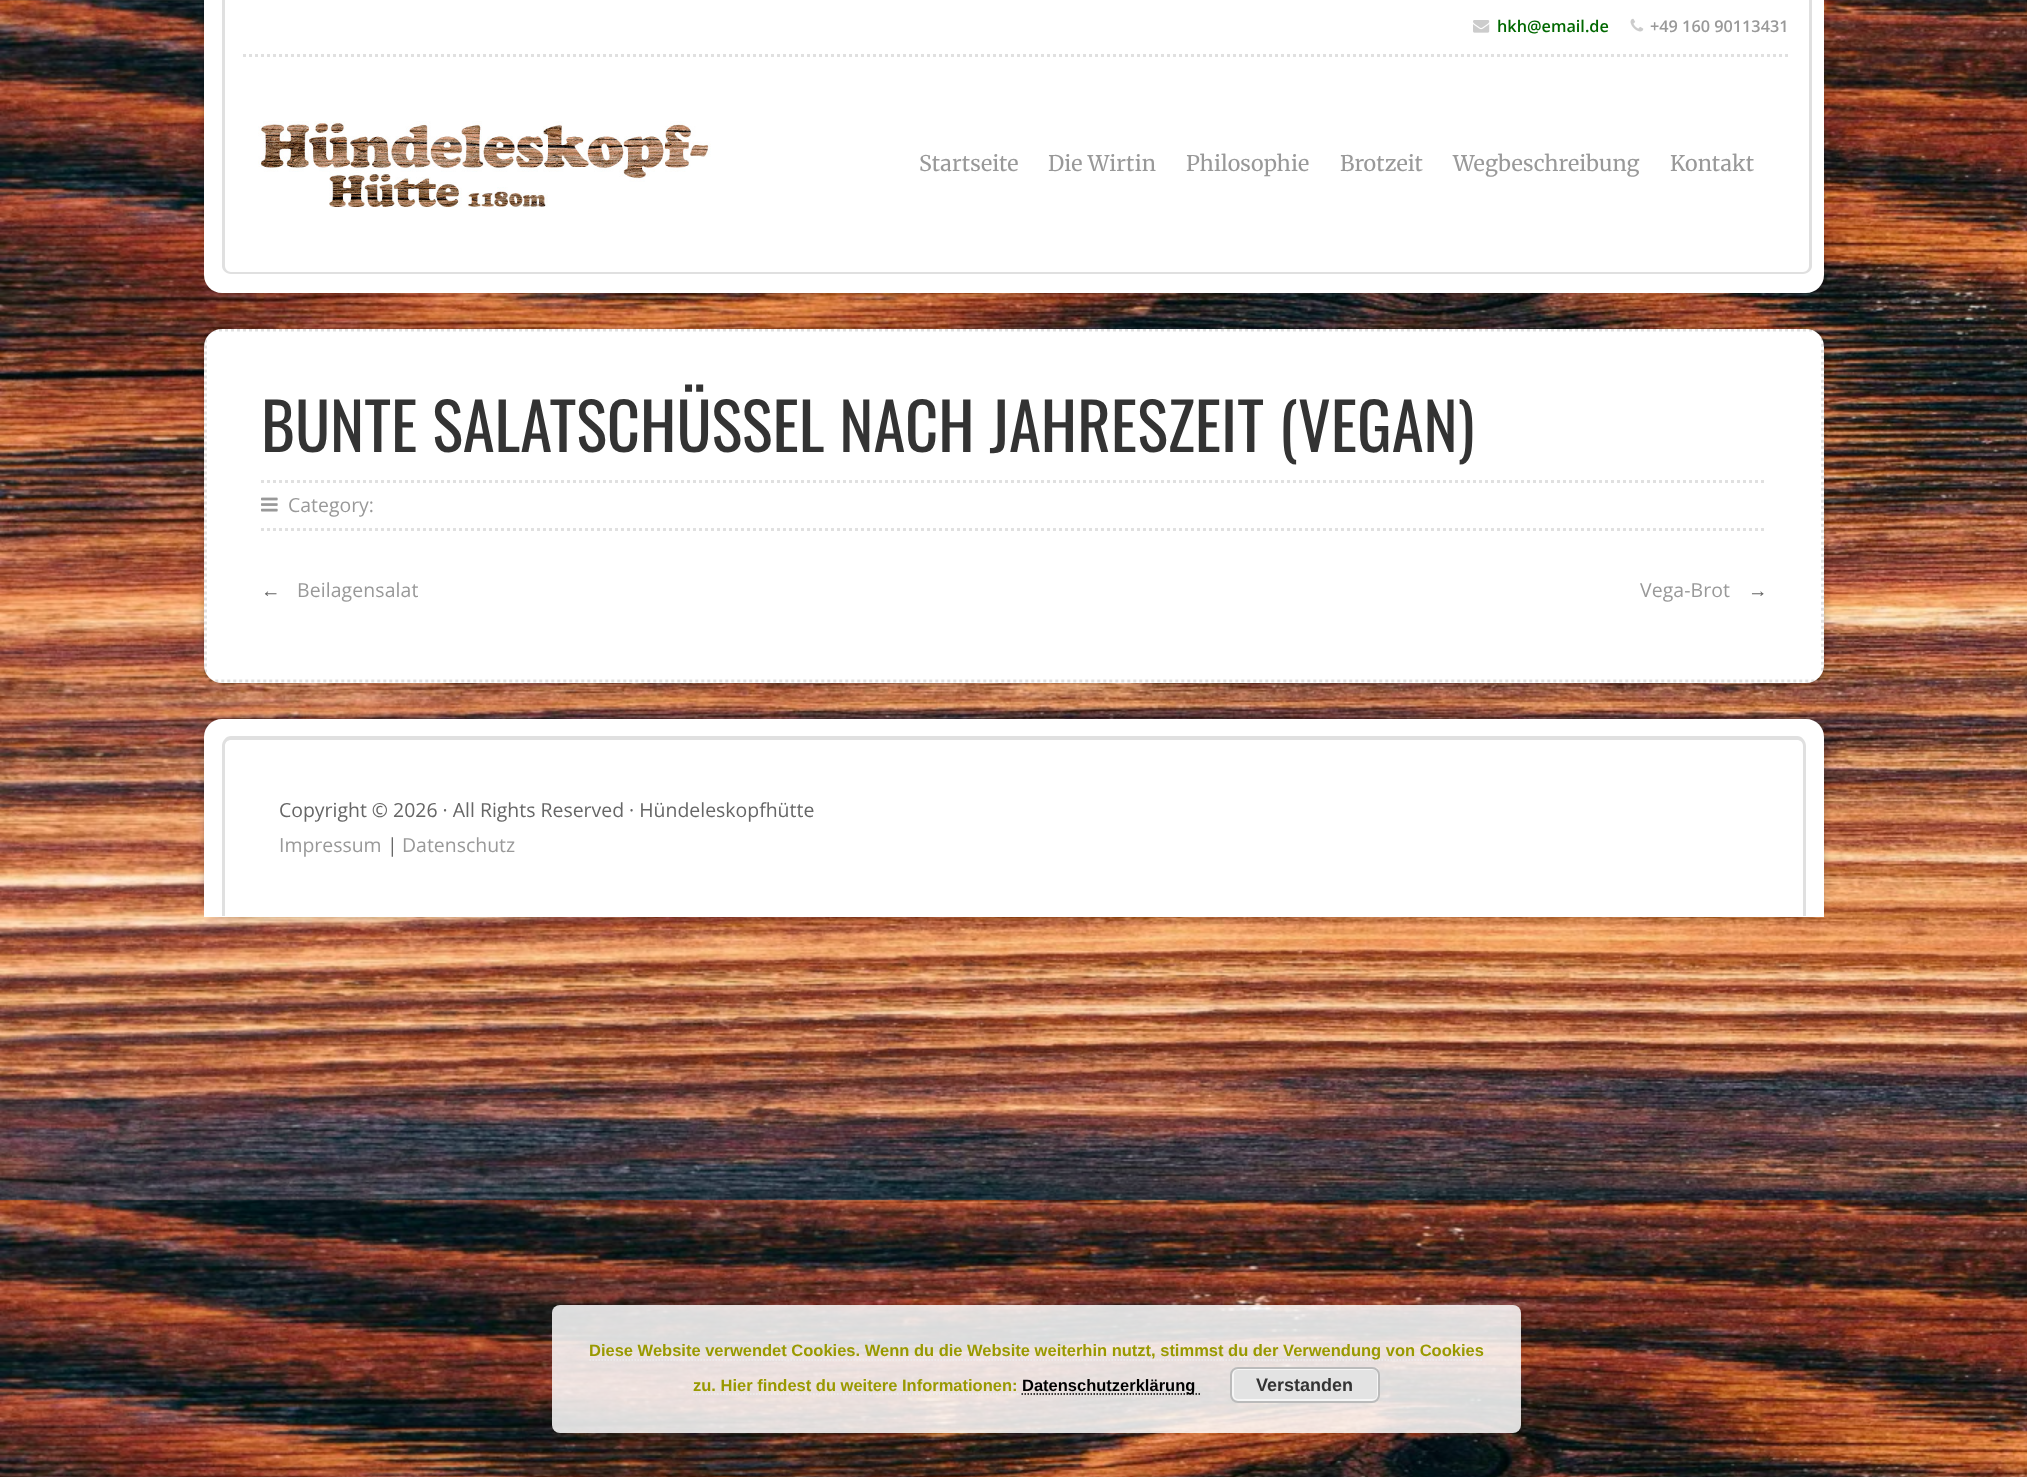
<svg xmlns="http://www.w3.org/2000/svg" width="2027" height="1477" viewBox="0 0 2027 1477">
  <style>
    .t1 { font: 600 16.25px Open Sans; fill: #016800; }
    .t2 { font: 600 16.25px Open Sans; fill: #999; }
    .t3 { font: 21.5px Merriweather; letter-spacing: 0.1px; fill: #999; }
    .t4 { font: 64.75px Oswald; fill: #333; }
    .t5 { font: 19.45px Open Sans; fill: #999; }
    .t6 { font: 19.45px Liberation Sans; fill: #666; }
    .t7 { font: 19.45px Open Sans; letter-spacing: 0.1px; fill: #999; }
    .t8 { font: 19.45px Open Sans; fill: #666; }
    .t9 { font: bold 16.5px Liberation Sans; fill: #990; }
    .t10 { font: bold 16.5px Liberation Sans; fill: #000; }
    .t11 { font: bold 18px Liberation Sans; fill: #333; }
  </style>
  <rect width="100%" height="100%" fill="#fff"/>
  <image x="0" y="0" width="2027" height="1477" href="images/1.png"/>
  <rect x="204" y="0" width="1620" height="293" rx="18" fill="#0000003d" filter="blur(4.5px)"/>
  <path d="M204 0H1824V275C1824 285 1816 293 1806 293H222C212 293 204 285 204 275Z" fill="#fff"/>
  <path d="M222 0H1812V266C1812 270 1808 274 1803 274H231C226 274 222 270 222 266ZM225 0H1809V266C1809 269 1806 272 1803 272H231C228 272 225 269 225 266Z" fill="#e0e0e0" fill-rule="evenodd"/>
  <path d="M243 55.5H1791" fill="none" stroke="#e0e0e0" stroke-width="3" stroke-dasharray="3 3"/>
  <image x="1473" y="20" width="17" height="13" href="images/2.png"/>
  <text x="1497" y="32" class="t1">hkh@email.de</text>
  <image x="1630" y="18" width="14" height="14" href="images/3.png"/>
  <text x="1650" y="32" class="t2">+49 160 90113431</text>
  <image x="258" y="121" width="453" height="87" href="images/4.png"/>
  <text x="919" y="171" class="t3">Startseite</text>
  <text x="1048" y="171" class="t3">Die Wirtin</text>
  <text x="1186" y="171" class="t3">Philosophie</text>
  <text x="1340" y="171" class="t3">Brotzeit</text>
  <text x="1453" y="171" class="t3">Wegbeschreibung</text>
  <text x="1670" y="171" class="t3">Kontakt</text>
  <rect x="204" y="329" width="1620" height="354" rx="18" fill="#0000003d" filter="blur(4.5px)"/>
  <rect x="204" y="329" width="1620" height="354" rx="18" fill="#fff"/>
  <path d="M213 330H1815C1819 330 1822.5 333.5 1822.5 337.5V673.5C1822.5 677.5 1819 681 1815 681H213C209 681 205.5 677.5 205.5 673.5V337.5C205.5 333.5 209 330 213 330Z" fill="none" stroke="#0000001f" stroke-width="3" stroke-dasharray="3 3"/>
  <text x="261" y="452" class="t4">BUNTE SALATSCHÜSSEL NACH JAHRESZEIT (VEGAN)</text>
  <path d="M261 481.5H1767" fill="none" stroke="#e0e0e0" stroke-width="3" stroke-dasharray="3 3"/>
  <path d="M261 529.5H1767" fill="none" stroke="#e0e0e0" stroke-width="3" stroke-dasharray="3 3"/>
  <image x="261" y="497" width="17" height="15" href="images/5.png"/>
  <text x="288" y="512" class="t5">Category:</text>
  <text x="261" y="597" class="t6">←</text>
  <text x="297" y="597" class="t7">Beilagensalat</text>
  <text x="1640" y="597" class="t7">Vega-Brot</text>
  <text x="1748" y="597" class="t6">→</text>
  <rect x="204" y="719" width="1620" height="198" rx="18" fill="#0000003d" filter="blur(4.5px)"/>
  <path d="M222 719H1806C1816 719 1824 727 1824 737V917H204V737C204 727 212 719 222 719Z" fill="#fff"/>
  <path d="M231 736H1797C1802 736 1806 741 1806 746V916H222V746C222 741 226 736 231 736ZM231 740H1797C1800 740 1803 742 1803 746V916H225V746C225 742 228 740 231 740Z" fill="#e0e0e0" fill-rule="evenodd"/>
  <text x="279" y="817" class="t8">Copyright © 2026 · All Rights Reserved · Hündeleskopfhütte</text>
  <text x="279" y="852" class="t5">Impressum</text>
  <text x="387" y="852" class="t8">|</text>
  <text x="402" y="852" class="t5">Datenschutz</text>
  <rect x="552" y="1305" width="969" height="128" rx="8" fill="#ffffffd9"/>
  <path d="M589.5 1360H1483.5" fill="none" stroke="#eee" stroke-width="1.5" stroke-dasharray="1.5 1.5"/>
  <text x="589" y="1356" class="t9">Diese Website verwendet Cookies. Wenn du die Website weiterhin nutzt, stimmst du der Verwendung von Cookies</text>
  <text x="693" y="1391" class="t9">zu. Hier findest du weitere Informationen:</text>
  <path d="M693 1394H1021.5" fill="none" stroke="#eee" stroke-width="1.5" stroke-dasharray="1.5 1.5"/>
  <path d="M1021.5 1394H1200" fill="none" stroke="#000" stroke-width="1.5" stroke-dasharray="1.5 1.5"/>
  <text x="1022" y="1391" class="t10">Datenschutzerklärung</text>
  <rect x="1230" y="1367" width="150" height="36" rx="8" fill="#e3e3e3"/>
  <rect x="1233" y="1369" width="145" height="31" rx="5" fill="none" stroke="#f6f6f6" stroke-width="2"/>
  <rect x="1231" y="1368" width="148" height="34" rx="7" fill="none" stroke="#bbb" stroke-width="2"/>
  <text x="1256" y="1391" class="t11">Verstanden</text>
</svg>
